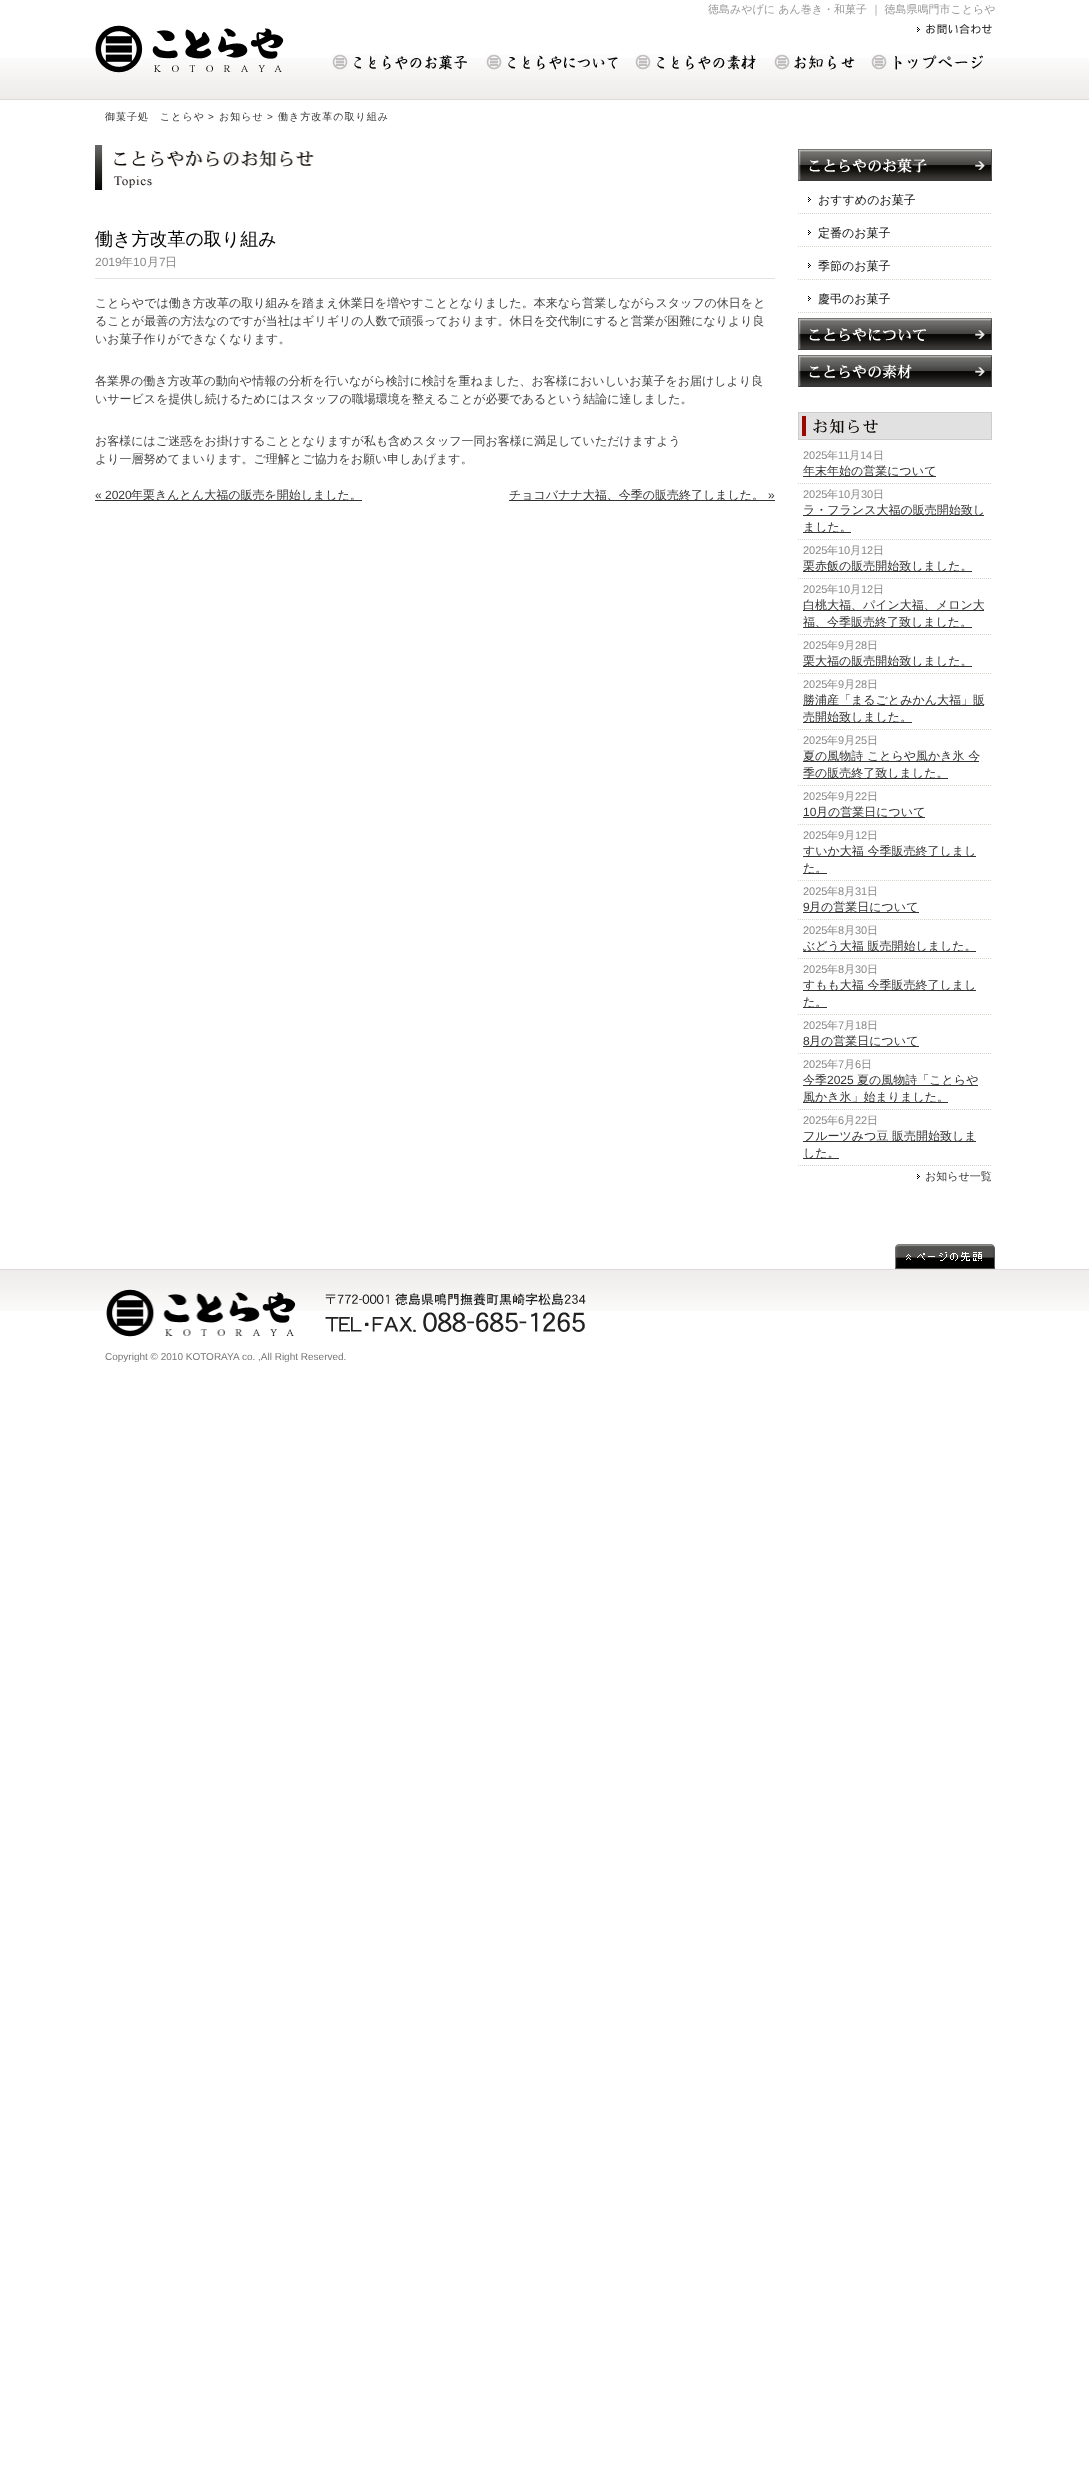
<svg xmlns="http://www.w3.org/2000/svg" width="1089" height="2465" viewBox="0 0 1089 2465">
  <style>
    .t1 { font: 500 11px WenQuanYi Zen Hei; fill: #999; }
    .t2 { font: 500 10px WenQuanYi Zen Hei; letter-spacing: 1px; fill: #333; }
    .t3 { font: 10px Liberation Sans; letter-spacing: 1px; fill: #333; }
    .t4 { font: 500 18px WenQuanYi Zen Hei; fill: #000; }
    .t5 { font: 12px Liberation Sans; fill: #888; }
    .t6 { font: 500 12px WenQuanYi Zen Hei; fill: #888; }
    .t7 { font: 500 12px WenQuanYi Zen Hei; fill: #444; }
    .t8 { font: 12px Liberation Sans; fill: #333; }
    .t9 { font: 500 12px WenQuanYi Zen Hei; fill: #333; }
    .t10 { font: 500 12px WenQuanYi Zen Hei; fill: #111; }
    .t11 { font: 11px Liberation Sans; fill: #888; }
    .t12 { font: 500 11px WenQuanYi Zen Hei; fill: #888; }
    .t13 { font: 500 11px WenQuanYi Zen Hei; fill: #333; }
    .t14 { font: 10px Liberation Sans; fill: #777; }
  </style>
  <rect width="100%" height="100%" fill="#fff"/>
  <image x="0" y="58" width="1089" height="42" href="images/1.png"/>
  <text x="708" y="13" class="t1">徳島みやげに あん巻き・和菓子 ｜ 徳島県鳴門市ことらや</text>
  <image x="917" y="24" width="75" height="10" href="images/2.png"/>
  <image x="95" y="25" width="189" height="48" href="images/3.png"/>
  <image x="332" y="54" width="135" height="16" href="images/4.png"/>
  <image x="486" y="54" width="132" height="16" href="images/5.png"/>
  <image x="635" y="54" width="121" height="16" href="images/6.png"/>
  <image x="774" y="54" width="81" height="16" href="images/7.png"/>
  <image x="871" y="54" width="112" height="16" href="images/8.png"/>
  <text x="105" y="120" class="t2">御菓子処　ことらや</text>
  <text x="208" y="120" class="t3">&gt;</text>
  <text x="219" y="120" class="t2">お知らせ</text>
  <text x="267" y="120" class="t3">&gt;</text>
  <text x="278" y="120" class="t2">働き方改革の取り組み</text>
  <image x="95" y="145" width="219" height="45" href="images/9.png"/>
  <text x="95" y="245" class="t4">働き方改革の取り組み</text>
  <rect x="95" y="278" width="680" height="1" fill="#e0e3de"/>
  <text x="95" y="266" class="t5">2019</text>
  <text x="121" y="266" class="t6">年</text>
  <text x="133" y="266" class="t5">10</text>
  <text x="147" y="266" class="t6">月</text>
  <text x="159" y="266" class="t5">7</text>
  <text x="165" y="266" class="t6">日</text>
  <text x="95" y="307" class="t7">ことらやでは働き方改革の取り組みを踏まえ休業日を増やすこととなりました。本来なら営業しながらスタッフの休日をと</text>
  <text x="95" y="325" class="t7">ることが最善の方法なのですが当社はギリギリの人数で頑張っております。休日を交代制にすると営業が困難になりより良</text>
  <text x="95" y="343" class="t7">いお菓子作りができなくなります。</text>
  <text x="95" y="385" class="t7">各業界の働き方改革の動向や情報の分析を行いながら検討に検討を重ねました、お客様においしいお菓子をお届けしより良</text>
  <text x="95" y="403" class="t7">いサービスを提供し続けるためにはスタッフの職場環境を整えることが必要であるという結論に達しました。</text>
  <text x="95" y="445" class="t7">お客様にはご迷惑をお掛けすることとなりますが私も含めスタッフ一同お客様に満足していただけますよう</text>
  <text x="95" y="463" class="t7">より一層努めてまいります。ご理解とご協力をお願い申しあげます。</text>
  <text x="95" y="499" class="t8">« 2020</text>
  <rect x="95" y="500" width="267" height="1" fill="#333"/>
  <text x="131" y="499" class="t9">年栗きんとん大福の販売を開始しました。</text>
  <rect x="509" y="500" width="266" height="1" fill="#333"/>
  <text x="509" y="499" class="t9">チョコバナナ大福、今季の販売終了しました。</text>
  <text x="768" y="499" class="t8">»</text>
  <image x="798" y="149" width="194" height="32" href="images/10.png"/>
  <image x="808" y="197" width="3" height="5" href="images/11.png"/>
  <path d="M798 213.5H992" fill="none" stroke="#d7d4cb" stroke-dasharray="1 1"/>
  <text x="818" y="204" class="t10">おすすめのお菓子</text>
  <image x="808" y="230" width="3" height="5" href="images/11.png"/>
  <path d="M798 246.5H992" fill="none" stroke="#d7d4cb" stroke-dasharray="1 1"/>
  <text x="818" y="237" class="t10">定番のお菓子</text>
  <image x="808" y="263" width="3" height="5" href="images/11.png"/>
  <path d="M798 279.5H992" fill="none" stroke="#d7d4cb" stroke-dasharray="1 1"/>
  <text x="818" y="270" class="t10">季節のお菓子</text>
  <image x="808" y="296" width="3" height="5" href="images/11.png"/>
  <path d="M798 312.5H992" fill="none" stroke="#d7d4cb" stroke-dasharray="1 1"/>
  <text x="818" y="303" class="t10">慶弔のお菓子</text>
  <image x="798" y="318" width="194" height="32" href="images/12.png"/>
  <image x="798" y="355" width="194" height="32" href="images/13.png"/>
  <image x="798" y="412" width="194" height="28" href="images/14.png"/>
  <text x="803" y="459" class="t11">2025</text>
  <text x="827" y="459" class="t12">年</text>
  <text x="838" y="459" class="t11">11</text>
  <text x="849" y="459" class="t12">月</text>
  <text x="860" y="459" class="t11">14</text>
  <text x="873" y="459" class="t12">日</text>
  <path d="M798 483.5H992" fill="none" stroke="#d7d4cb" stroke-dasharray="1 1"/>
  <rect x="803" y="476" width="133" height="1" fill="#333"/>
  <text x="803" y="475" class="t9">年末年始の営業について</text>
  <text x="803" y="498" class="t11">2025</text>
  <text x="827" y="498" class="t12">年</text>
  <text x="838" y="498" class="t11">10</text>
  <text x="850" y="498" class="t12">月</text>
  <text x="861" y="498" class="t11">30</text>
  <text x="873" y="498" class="t12">日</text>
  <path d="M798 539.5H992" fill="none" stroke="#d7d4cb" stroke-dasharray="1 1"/>
  <rect x="803" y="515" width="181" height="1" fill="#333"/>
  <text x="803" y="514" class="t9">ラ・フランス大福の販売開始致し</text>
  <rect x="803" y="532" width="48" height="1" fill="#333"/>
  <text x="803" y="531" class="t9">ました。</text>
  <text x="803" y="554" class="t11">2025</text>
  <text x="827" y="554" class="t12">年</text>
  <text x="838" y="554" class="t11">10</text>
  <text x="850" y="554" class="t12">月</text>
  <text x="861" y="554" class="t11">12</text>
  <text x="873" y="554" class="t12">日</text>
  <path d="M798 578.5H992" fill="none" stroke="#d7d4cb" stroke-dasharray="1 1"/>
  <rect x="803" y="571" width="169" height="1" fill="#333"/>
  <text x="803" y="570" class="t9">栗赤飯の販売開始致しました。</text>
  <text x="803" y="593" class="t11">2025</text>
  <text x="827" y="593" class="t12">年</text>
  <text x="838" y="593" class="t11">10</text>
  <text x="850" y="593" class="t12">月</text>
  <text x="861" y="593" class="t11">12</text>
  <text x="873" y="593" class="t12">日</text>
  <path d="M798 634.5H992" fill="none" stroke="#d7d4cb" stroke-dasharray="1 1"/>
  <rect x="803" y="610" width="181" height="1" fill="#333"/>
  <text x="803" y="609" class="t9">白桃大福、パイン大福、メロン大</text>
  <rect x="803" y="627" width="169" height="1" fill="#333"/>
  <text x="803" y="626" class="t9">福、今季販売終了致しました。</text>
  <text x="803" y="649" class="t11">2025</text>
  <text x="827" y="649" class="t12">年</text>
  <text x="838" y="649" class="t11">9</text>
  <text x="844" y="649" class="t12">月</text>
  <text x="855" y="649" class="t11">28</text>
  <text x="867" y="649" class="t12">日</text>
  <path d="M798 673.5H992" fill="none" stroke="#d7d4cb" stroke-dasharray="1 1"/>
  <rect x="803" y="666" width="169" height="1" fill="#333"/>
  <text x="803" y="665" class="t9">栗大福の販売開始致しました。</text>
  <text x="803" y="688" class="t11">2025</text>
  <text x="827" y="688" class="t12">年</text>
  <text x="838" y="688" class="t11">9</text>
  <text x="844" y="688" class="t12">月</text>
  <text x="855" y="688" class="t11">28</text>
  <text x="867" y="688" class="t12">日</text>
  <path d="M798 729.5H992" fill="none" stroke="#d7d4cb" stroke-dasharray="1 1"/>
  <rect x="803" y="705" width="181" height="1" fill="#333"/>
  <text x="803" y="704" class="t9">勝浦産「まるごとみかん大福」販</text>
  <rect x="803" y="722" width="109" height="1" fill="#333"/>
  <text x="803" y="721" class="t9">売開始致しました。</text>
  <text x="803" y="744" class="t11">2025</text>
  <text x="827" y="744" class="t12">年</text>
  <text x="838" y="744" class="t11">9</text>
  <text x="844" y="744" class="t12">月</text>
  <text x="855" y="744" class="t11">25</text>
  <text x="867" y="744" class="t12">日</text>
  <path d="M798 785.5H992" fill="none" stroke="#d7d4cb" stroke-dasharray="1 1"/>
  <rect x="803" y="761" width="176" height="1" fill="#333"/>
  <text x="803" y="760" class="t9">夏の風物詩 ことらや風かき氷 今</text>
  <rect x="803" y="778" width="145" height="1" fill="#333"/>
  <text x="803" y="777" class="t9">季の販売終了致しました。</text>
  <text x="803" y="800" class="t11">2025</text>
  <text x="827" y="800" class="t12">年</text>
  <text x="838" y="800" class="t11">9</text>
  <text x="844" y="800" class="t12">月</text>
  <text x="855" y="800" class="t11">22</text>
  <text x="867" y="800" class="t12">日</text>
  <path d="M798 824.5H992" fill="none" stroke="#d7d4cb" stroke-dasharray="1 1"/>
  <text x="803" y="816" class="t8">10</text>
  <rect x="803" y="817" width="122" height="1" fill="#333"/>
  <text x="816" y="816" class="t9">月の営業日について</text>
  <text x="803" y="839" class="t11">2025</text>
  <text x="827" y="839" class="t12">年</text>
  <text x="838" y="839" class="t11">9</text>
  <text x="844" y="839" class="t12">月</text>
  <text x="855" y="839" class="t11">12</text>
  <text x="867" y="839" class="t12">日</text>
  <path d="M798 880.5H992" fill="none" stroke="#d7d4cb" stroke-dasharray="1 1"/>
  <rect x="803" y="856" width="173" height="1" fill="#333"/>
  <text x="803" y="855" class="t9">すいか大福 今季販売終了しまし</text>
  <rect x="803" y="873" width="24" height="1" fill="#333"/>
  <text x="803" y="872" class="t9">た。</text>
  <text x="803" y="895" class="t11">2025</text>
  <text x="827" y="895" class="t12">年</text>
  <text x="838" y="895" class="t11">8</text>
  <text x="844" y="895" class="t12">月</text>
  <text x="855" y="895" class="t11">31</text>
  <text x="867" y="895" class="t12">日</text>
  <path d="M798 919.5H992" fill="none" stroke="#d7d4cb" stroke-dasharray="1 1"/>
  <text x="803" y="911" class="t8">9</text>
  <rect x="803" y="912" width="116" height="1" fill="#333"/>
  <text x="809" y="911" class="t9">月の営業日について</text>
  <text x="803" y="934" class="t11">2025</text>
  <text x="827" y="934" class="t12">年</text>
  <text x="838" y="934" class="t11">8</text>
  <text x="844" y="934" class="t12">月</text>
  <text x="855" y="934" class="t11">30</text>
  <text x="867" y="934" class="t12">日</text>
  <path d="M798 958.5H992" fill="none" stroke="#d7d4cb" stroke-dasharray="1 1"/>
  <rect x="803" y="951" width="173" height="1" fill="#333"/>
  <text x="803" y="950" class="t9">ぶどう大福 販売開始しました。</text>
  <text x="803" y="973" class="t11">2025</text>
  <text x="827" y="973" class="t12">年</text>
  <text x="838" y="973" class="t11">8</text>
  <text x="844" y="973" class="t12">月</text>
  <text x="855" y="973" class="t11">30</text>
  <text x="867" y="973" class="t12">日</text>
  <path d="M798 1014.5H992" fill="none" stroke="#d7d4cb" stroke-dasharray="1 1"/>
  <rect x="803" y="990" width="173" height="1" fill="#333"/>
  <text x="803" y="989" class="t9">すもも大福 今季販売終了しまし</text>
  <rect x="803" y="1007" width="24" height="1" fill="#333"/>
  <text x="803" y="1006" class="t9">た。</text>
  <text x="803" y="1029" class="t11">2025</text>
  <text x="827" y="1029" class="t12">年</text>
  <text x="838" y="1029" class="t11">7</text>
  <text x="844" y="1029" class="t12">月</text>
  <text x="855" y="1029" class="t11">18</text>
  <text x="867" y="1029" class="t12">日</text>
  <path d="M798 1053.5H992" fill="none" stroke="#d7d4cb" stroke-dasharray="1 1"/>
  <text x="803" y="1045" class="t8">8</text>
  <rect x="803" y="1046" width="116" height="1" fill="#333"/>
  <text x="809" y="1045" class="t9">月の営業日について</text>
  <text x="803" y="1068" class="t11">2025</text>
  <text x="827" y="1068" class="t12">年</text>
  <text x="838" y="1068" class="t11">7</text>
  <text x="844" y="1068" class="t12">月</text>
  <text x="855" y="1068" class="t11">6</text>
  <text x="861" y="1068" class="t12">日</text>
  <path d="M798 1109.5H992" fill="none" stroke="#d7d4cb" stroke-dasharray="1 1"/>
  <rect x="803" y="1085" width="175" height="1" fill="#333"/>
  <text x="803" y="1084" class="t9">今季</text>
  <text x="827" y="1084" class="t8">2025</text>
  <text x="857" y="1084" class="t9">夏の風物詩「ことらや</text>
  <rect x="803" y="1102" width="145" height="1" fill="#333"/>
  <text x="803" y="1101" class="t9">風かき氷」始まりました。</text>
  <text x="803" y="1124" class="t11">2025</text>
  <text x="827" y="1124" class="t12">年</text>
  <text x="838" y="1124" class="t11">6</text>
  <text x="844" y="1124" class="t12">月</text>
  <text x="855" y="1124" class="t11">22</text>
  <text x="867" y="1124" class="t12">日</text>
  <path d="M798 1165.5H992" fill="none" stroke="#d7d4cb" stroke-dasharray="1 1"/>
  <rect x="803" y="1141" width="173" height="1" fill="#333"/>
  <text x="803" y="1140" class="t9">フルーツみつ豆 販売開始致しま</text>
  <rect x="803" y="1158" width="36" height="1" fill="#333"/>
  <text x="803" y="1157" class="t9">した。</text>
  <image x="917" y="1174" width="3" height="5" href="images/11.png"/>
  <text x="925" y="1180" class="t13">お知らせ一覧</text>
  <image x="895" y="1244" width="100" height="25" href="images/15.png"/>
  <image x="0" y="1269" width="1089" height="42" href="images/16.png"/>
  <image x="106" y="1289" width="190" height="48" href="images/17.png"/>
  <image x="325" y="1293" width="261" height="39" href="images/18.png"/>
  <text x="105" y="1360" class="t14">Copyright © 2010 KOTORAYA co. ,All Right Reserved.</text>
</svg>
